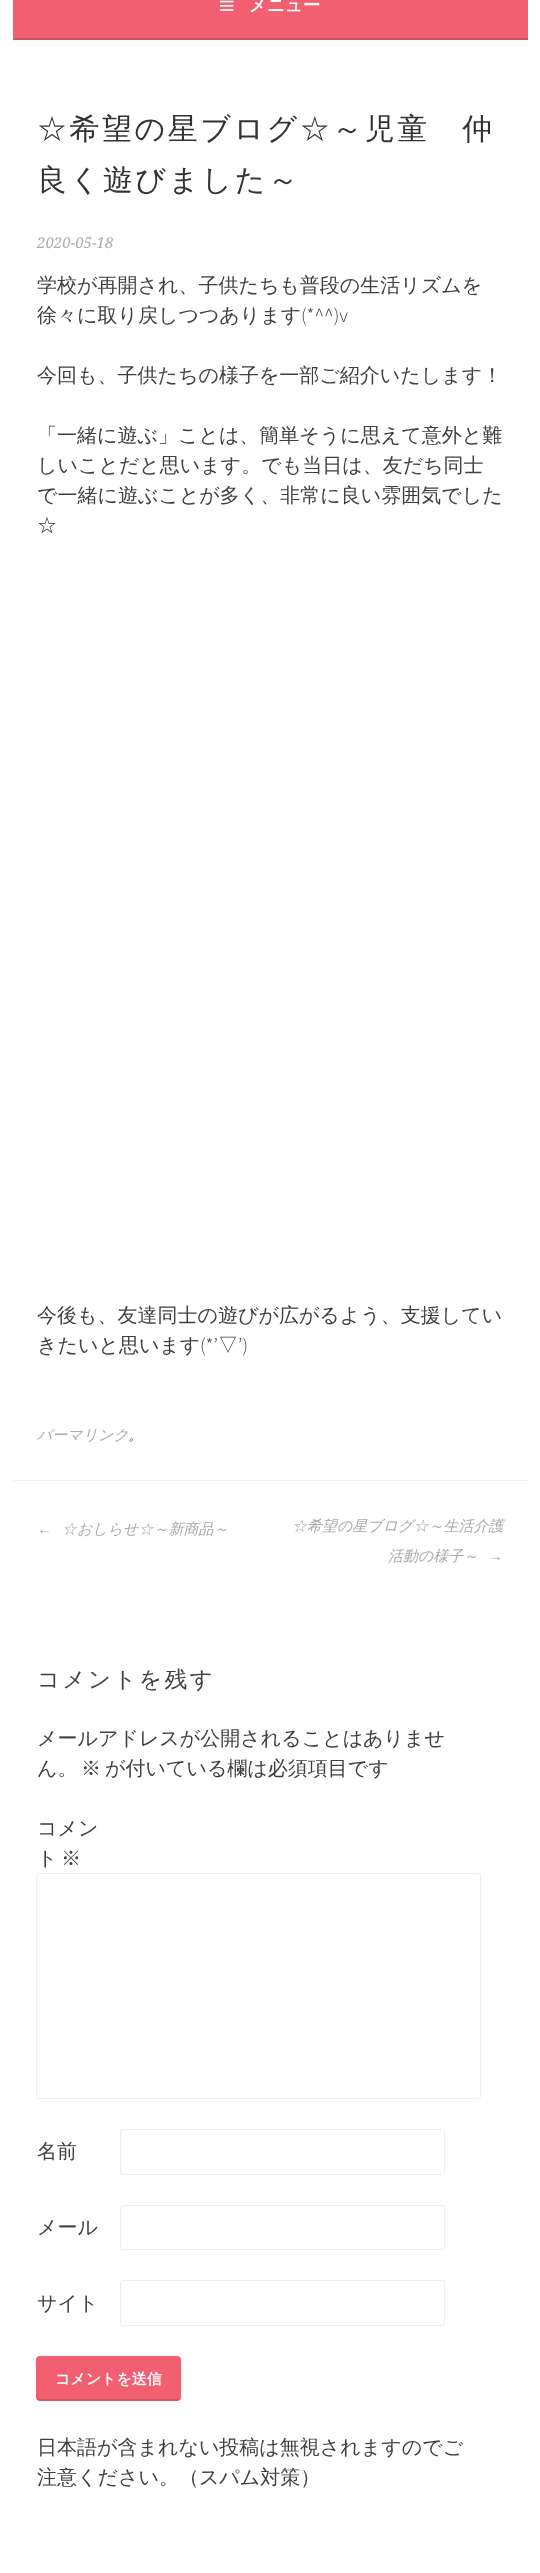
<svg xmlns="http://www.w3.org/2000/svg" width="540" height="2573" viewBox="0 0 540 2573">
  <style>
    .t1 { font: bold 17.5px WenQuanYi Zen Hei; fill: #fff; }
    .t2 { font: 500 30px WenQuanYi Zen Hei; letter-spacing: 2.5px; fill: #333; }
    .t3 { font: italic 15px Droid Serif; fill: #aaa; }
    .t4 { font: 500 20px WenQuanYi Zen Hei; fill: #404040; }
    .t5 { font: 300 20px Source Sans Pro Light; fill: #404040; }
    .t6 { font: italic 500 15px WenQuanYi Zen Hei; fill: #aaa; }
    .t7 { font: italic 500 15px WenQuanYi Zen Hei; fill: #404040; }
    .t8 { font: italic 15px Liberation Serif; fill: #aaa; }
    .t9 { font: 500 22.5px WenQuanYi Zen Hei; letter-spacing: 2.5px; fill: #404040; }
    .t10 { font: bold 15px WenQuanYi Zen Hei; fill: #fff; }
  </style>
  <rect width="100%" height="100%" fill="#fff"/>
  <rect x="13" y="0" width="515" height="38" fill="#f25f70"/>
  <rect x="13" y="38" width="515" height="2" fill="#ce515f"/>
  <image x="220" y="0" width="14" height="11" href="images/1.png"/>
  <text x="249" y="11" class="t1">メニュー</text>
  <text x="37" y="139" class="t2">☆希望の星ブログ☆～児童　仲</text>
  <text x="37" y="190" class="t2">良く遊びました～</text>
  <text x="37" y="248" class="t3">2020-05-18</text>
  <text x="37" y="292" class="t4">学校が再開され、子供たちも普段の生活リズムを</text>
  <text x="37" y="322" class="t4">徐々に取り戻しつつあります</text>
  <text x="301" y="322" class="t5">(*^^)v</text>
  <text x="37" y="382" class="t4">今回も、子供たちの様子を一部ご紹介いたします！</text>
  <text x="37" y="442" class="t4">「一緒に遊ぶ」ことは、簡単そうに思えて意外と難</text>
  <text x="37" y="472" class="t4">しいことだと思います。でも当日は、友だち同士</text>
  <text x="37" y="502" class="t4">で一緒に遊ぶことが多く、非常に良い雰囲気でした</text>
  <text x="37" y="532" class="t4">☆</text>
  <text x="37" y="1322" class="t4">今後も、友達同士の遊びが広がるよう、支援してい</text>
  <text x="37" y="1352" class="t4">きたいと思います</text>
  <text x="200" y="1352" class="t5">(*’</text>
  <text x="218" y="1352" class="t4">▽</text>
  <text x="238" y="1352" class="t5">’)</text>
  <text x="37" y="1440" class="t6">パーマリンク</text>
  <text x="128" y="1440" class="t7">。</text>
  <rect x="13" y="1480" width="515" height="1" fill="#f2f2f2"/>
  <text x="37" y="1534" class="t8">←</text>
  <text x="62" y="1534" class="t6">☆おしらせ☆～新商品～</text>
  <text x="292" y="1531" class="t6">☆希望の星ブログ☆～生活介護</text>
  <text x="388" y="1561" class="t6">活動の様子～</text>
  <text x="488" y="1561" class="t8">→</text>
  <text x="37" y="1687" class="t9">コメントを残す</text>
  <text x="37" y="1745" class="t4">メールアドレスが公開されることはありませ</text>
  <text x="37" y="1775" class="t4">ん。</text>
  <text x="81" y="1775" class="t4">※</text>
  <text x="105" y="1775" class="t4">が付いている欄は必須項目です</text>
  <text x="37" y="1835" class="t4">コメン</text>
  <text x="37" y="1865" class="t4">ト</text>
  <text x="61" y="1865" class="t4">※</text>
  <rect x="36.5" y="1873.5" width="444" height="225" rx="2" fill="none" stroke="#eee"/>
  <text x="37" y="2158" class="t4">名前</text>
  <rect x="120.5" y="2129.5" width="324" height="45" rx="2" fill="none" stroke="#eee"/>
  <text x="37" y="2234" class="t4">メール</text>
  <rect x="120.5" y="2205.5" width="324" height="44" rx="2" fill="none" stroke="#eee"/>
  <text x="37" y="2310" class="t4">サイト</text>
  <rect x="120.5" y="2280.5" width="324" height="45" rx="2" fill="none" stroke="#eee"/>
  <rect x="36" y="2356" width="145" height="45" rx="4" fill="#f25f70"/>
  <path d="M36 2395V2397C36 2399 38 2401 40 2401H177C179 2401 181 2399 181 2397V2395C181 2397 180 2399 178 2399H40C38 2399 36 2397 36 2395Z" fill="#0000001a"/>
  <text x="55" y="2384" class="t10">コメントを送信</text>
  <text x="37" y="2454" class="t4">日本語が含まれない投稿は無視されますのでご</text>
  <text x="37" y="2484" class="t4">注意ください。（スパム対策）</text>
</svg>
